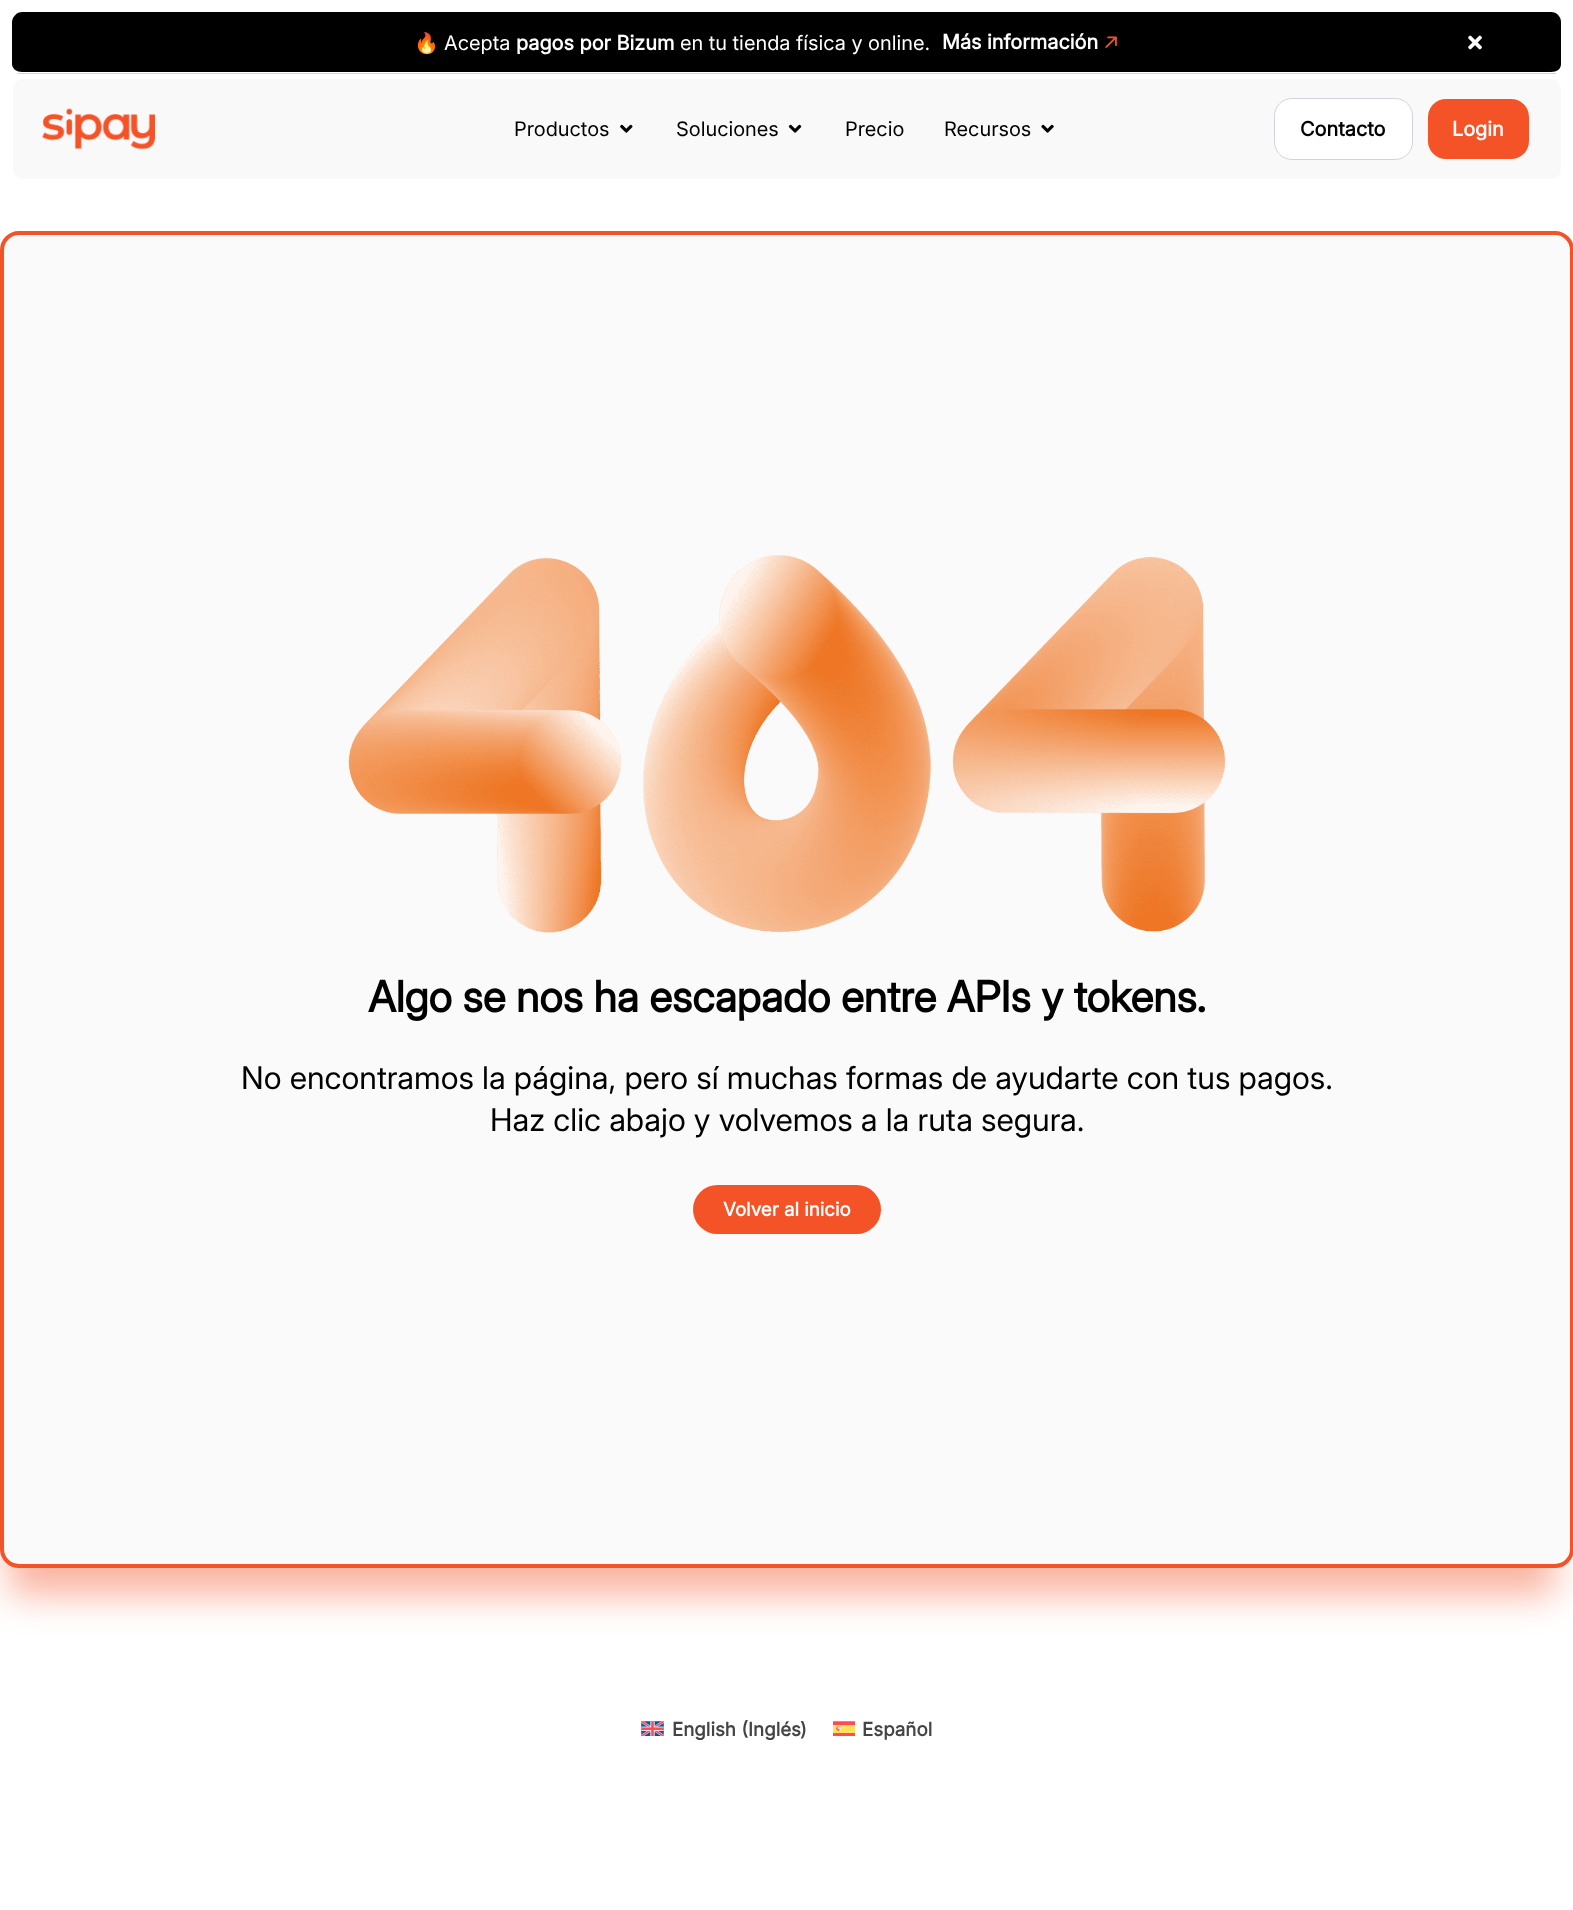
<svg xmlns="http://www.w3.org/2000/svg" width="1573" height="1910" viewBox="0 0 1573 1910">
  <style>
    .t1 { font: 20px Noto Color Emoji; fill: #fff; }
    .t2 { font: 20px 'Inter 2'; fill: #fff; }
    .t3 { font: bold 20px 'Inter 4'; fill: #fff; }
    .t4 { font: 20px 'Inter 2'; fill: #000; }
    .t5 { font: bold 20px 'Inter 4'; fill: #000; }
    .t6 { font: bold 42.5px 'Inter 2'; fill: #000; }
    .t7 { font: 31.25px Inter; fill: #000; }
    .t8 { font: bold 18.75px 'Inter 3'; fill: #fff; }
    .t9 { font: bold 18.75px Inter; fill: #444; }
  </style>
  <defs>
    <clipPath id="clip1"><path d="M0 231H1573V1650H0ZM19 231H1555C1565.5 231 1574 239.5 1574 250V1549C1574 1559.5 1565.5 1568 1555 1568H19C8.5 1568 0 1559.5 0 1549V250C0 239.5 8.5 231 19 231Z" clip-rule="evenodd"/></clipPath>
  </defs>
  <rect width="100%" height="100%" fill="#fff"/>
  <path d="M22 12H1551C1557 12 1561 17 1561 22V64C1561 69 1557 72 1551 72H22C17 72 12 69 12 64V22C12 17 17 12 22 12Z" fill="#000"/>
  <rect x="18" y="73" width="1538" height="1" fill="#d0d5dd"/>
  <text x="414" y="50" class="t1">🔥</text>
  <text x="444" y="50" class="t2">Acepta</text>
  <text x="516" y="50" class="t3">pagos por Bizum</text>
  <text x="680" y="50" class="t2">en tu tienda física y online.</text>
  <text x="942" y="49" class="t3">Más información</text>
  <image x="1105" y="36" width="12" height="12" href="images/1.png"/>
  <image x="1468" y="35" width="14" height="15" href="images/2.png"/>
  <rect x="13" y="79" width="1548" height="100" rx="10" fill="#f9f9f9"/>
  <image x="42" y="108" width="113" height="41" href="images/3.png"/>
  <text x="514" y="136" class="t4">Productos</text>
  <image x="620" y="124" width="13" height="9" href="images/4.png"/>
  <text x="676" y="136" class="t4">Soluciones</text>
  <image x="788" y="124" width="14" height="9" href="images/5.png"/>
  <text x="845" y="136" class="t4">Precio</text>
  <text x="944" y="136" class="t4">Recursos</text>
  <image x="1041" y="124" width="13" height="9" href="images/6.png"/>
  <rect x="1274.5" y="98.5" width="138" height="61" rx="17.5" fill="#fff" stroke="#d0d5dd"/>
  <text x="1300" y="136" class="t5">Contacto</text>
  <rect x="1428" y="99" width="101" height="60" rx="18" fill="#f45227"/>
  <text x="1452" y="136" class="t3">Login</text>
  <g clip-path="url(#clip1)">
    <rect x="9" y="286" width="1546" height="1309" rx="5" fill="#f4522770" filter="blur(18px)"/>
  </g>
  <rect x="2" y="233" width="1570" height="1333" rx="17" fill="#f9f9f9c9" stroke="#f45227" stroke-width="4"/>
  <image x="348" y="555" width="877" height="378" href="images/7.png"/>
  <text x="368" y="1012" class="t6">Algo se nos ha escapado entre APIs y tokens.</text>
  <text x="241" y="1089" class="t7">No encontramos la página, pero sí muchas formas de ayudarte con tus pagos.</text>
  <text x="490" y="1131" class="t7">Haz clic abajo y volvemos a la ruta segura.</text>
  <rect x="693" y="1185" width="188" height="49" rx="24.5" fill="#f45227"/>
  <text x="723" y="1216" class="t8">Volver al inicio</text>
  <image x="641" y="1721" width="23" height="15" href="images/8.png"/>
  <text x="672" y="1736" class="t9">English (Inglés</text>
  <text x="800" y="1736" class="t9">)</text>
  <image x="833" y="1721" width="22" height="15" href="images/9.png"/>
  <text x="862" y="1736" class="t9">Español</text>
</svg>
